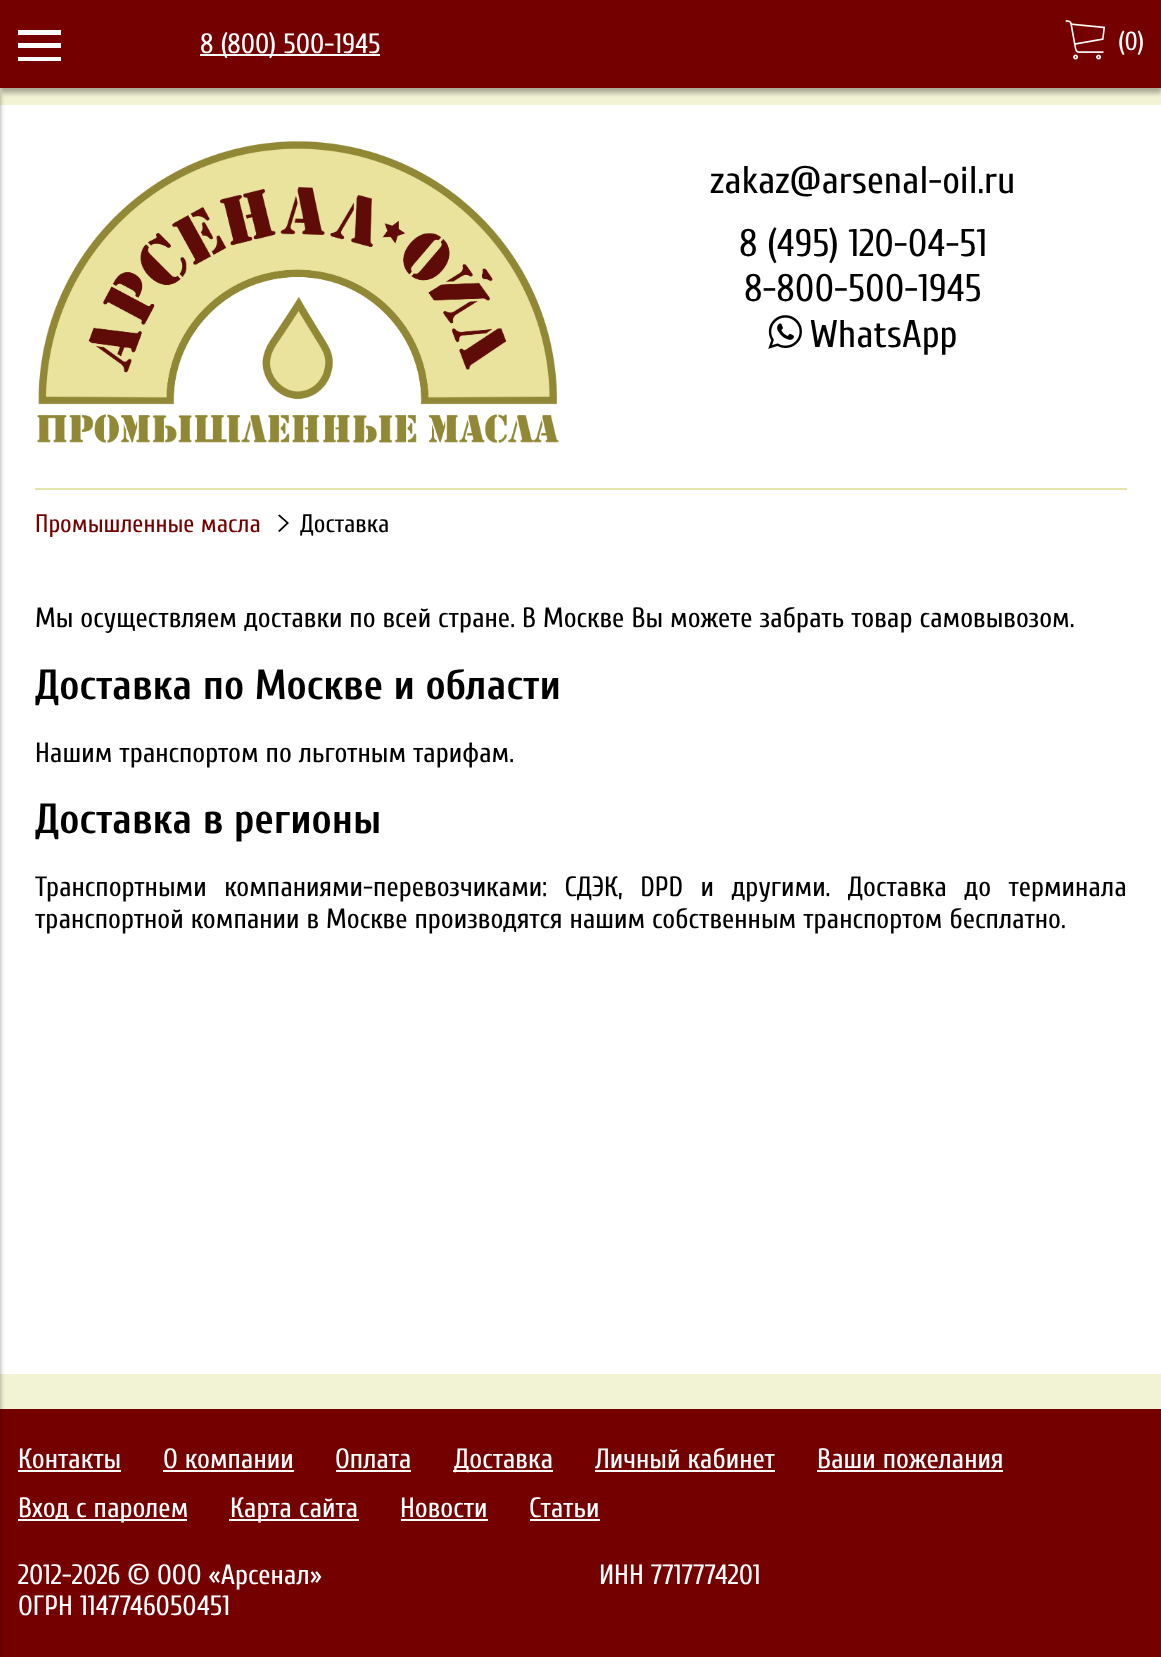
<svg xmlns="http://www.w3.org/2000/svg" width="1161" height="1657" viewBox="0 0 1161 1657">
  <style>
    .t1 { font: 28px Cuprum; fill: #fff; }
    .t2 { font: 26px Cuprum; fill: #fff; }
    .t3 { font: 38.5px Cuprum; fill: #000; }
    .t4 { font: 25.25px Cuprum; fill: #750000; }
    .t5 { font: 25.25px Cuprum; fill: #000; }
    .t6 { font: 28px Cuprum; fill: #000; }
    .t7 { font: bold 42px Cuprum; fill: #000; }
  </style>
  <rect width="100%" height="100%" fill="#f2f2d5"/>
  <rect x="0" y="5" width="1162" height="88" fill="#0000004d" filter="blur(2.5px)"/>
  <rect x="0" y="0" width="1161" height="88" fill="#750000"/>
  <path d="M18 48V43H61V48ZM18 35V30H61V35ZM18 61V57H61V61Z" fill="#fff"/>
  <rect x="200" y="54" width="180" height="2" fill="#fff"/>
  <text x="200" y="53" class="t1">8 (800) 500-1945</text>
  <image x="1065" y="20" width="41" height="40" href="images/1.png"/>
  <text x="1118" y="50" class="t2">(0)</text>
  <rect x="0" y="105" width="1161" height="1269" fill="#fff"/>
  <rect x="0" y="1409" width="1161" height="248" fill="#750000"/>
  <rect x="-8" y="93" width="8" height="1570" fill="#00000066" filter="blur(2.5px)"/>
  <image x="37" y="141" width="522" height="302" href="images/2.png"/>
  <text x="710" y="193" class="t3">zakaz@arsenal-oil.ru</text>
  <text x="739" y="256" class="t3">8 (495) 120-04-51</text>
  <text x="744" y="301" class="t3">8-800-500-1945</text>
  <image x="768" y="315" width="34" height="34" href="images/3.png"/>
  <text x="810" y="347" class="t3">WhatsApp</text>
  <rect x="35" y="488" width="1092" height="2" fill="#e5e4ab"/>
  <text x="35" y="532" class="t4">Промышленные масла</text>
  <path d="M278 515.5L279.5 514.5L289 523L279.5 532L278 531L286.5 523Z" fill="#000"/>
  <text x="300" y="532" class="t5">Доставка</text>
  <text x="35" y="627" class="t6">Мы осуществляем доставки по всей стране. В Москве Вы можете забрать товар самовывозом.</text>
  <text x="35" y="699" class="t7">Доставка по Москве и области</text>
  <text x="35" y="762" class="t6">Нашим транспортом по льготным тарифам.</text>
  <text x="35" y="833" class="t7">Доставка в регионы</text>
  <text x="35" y="896" word-spacing="10.5" class="t6">Транспортными компаниями-перевозчиками: СДЭК, DPD и другими. Доставка до терминала</text>
  <text x="35" y="928" class="t6">транспортной компании в Москве производятся нашим собственным транспортом бесплатно.</text>
  <text x="18" y="1468" class="t1">Контакты</text>
  <rect x="18" y="1470" width="103" height="2" fill="#fff"/>
  <text x="163" y="1468" class="t1">О компании</text>
  <rect x="163" y="1470" width="131" height="2" fill="#fff"/>
  <text x="335" y="1468" class="t1">Оплата</text>
  <rect x="336" y="1470" width="75" height="2" fill="#fff"/>
  <rect x="453" y="1470" width="100" height="2" fill="#fff"/>
  <text x="454" y="1468" class="t1">Доставка</text>
  <text x="595" y="1468" class="t1">Личный кабинет</text>
  <rect x="595" y="1470" width="180" height="2" fill="#fff"/>
  <text x="817" y="1468" class="t1">Ваши пожелания</text>
  <rect x="817" y="1470" width="186" height="2" fill="#fff"/>
  <rect x="18" y="1519" width="169" height="2" fill="#fff"/>
  <text x="18" y="1517" class="t1">Вход с паролем</text>
  <rect x="229" y="1519" width="130" height="2" fill="#fff"/>
  <text x="230" y="1517" class="t1">Карта сайта</text>
  <text x="400" y="1517" class="t1">Новости</text>
  <rect x="401" y="1519" width="87" height="2" fill="#fff"/>
  <text x="529" y="1517" class="t1">Статьи</text>
  <rect x="530" y="1519" width="70" height="2" fill="#fff"/>
  <text x="18" y="1584" class="t1">2012-2026 © ООО «Арсенал»</text>
  <text x="599" y="1584" class="t1">ИНН 7717774201</text>
  <text x="18" y="1615" class="t1">ОГРН 1147746050451</text>
</svg>
